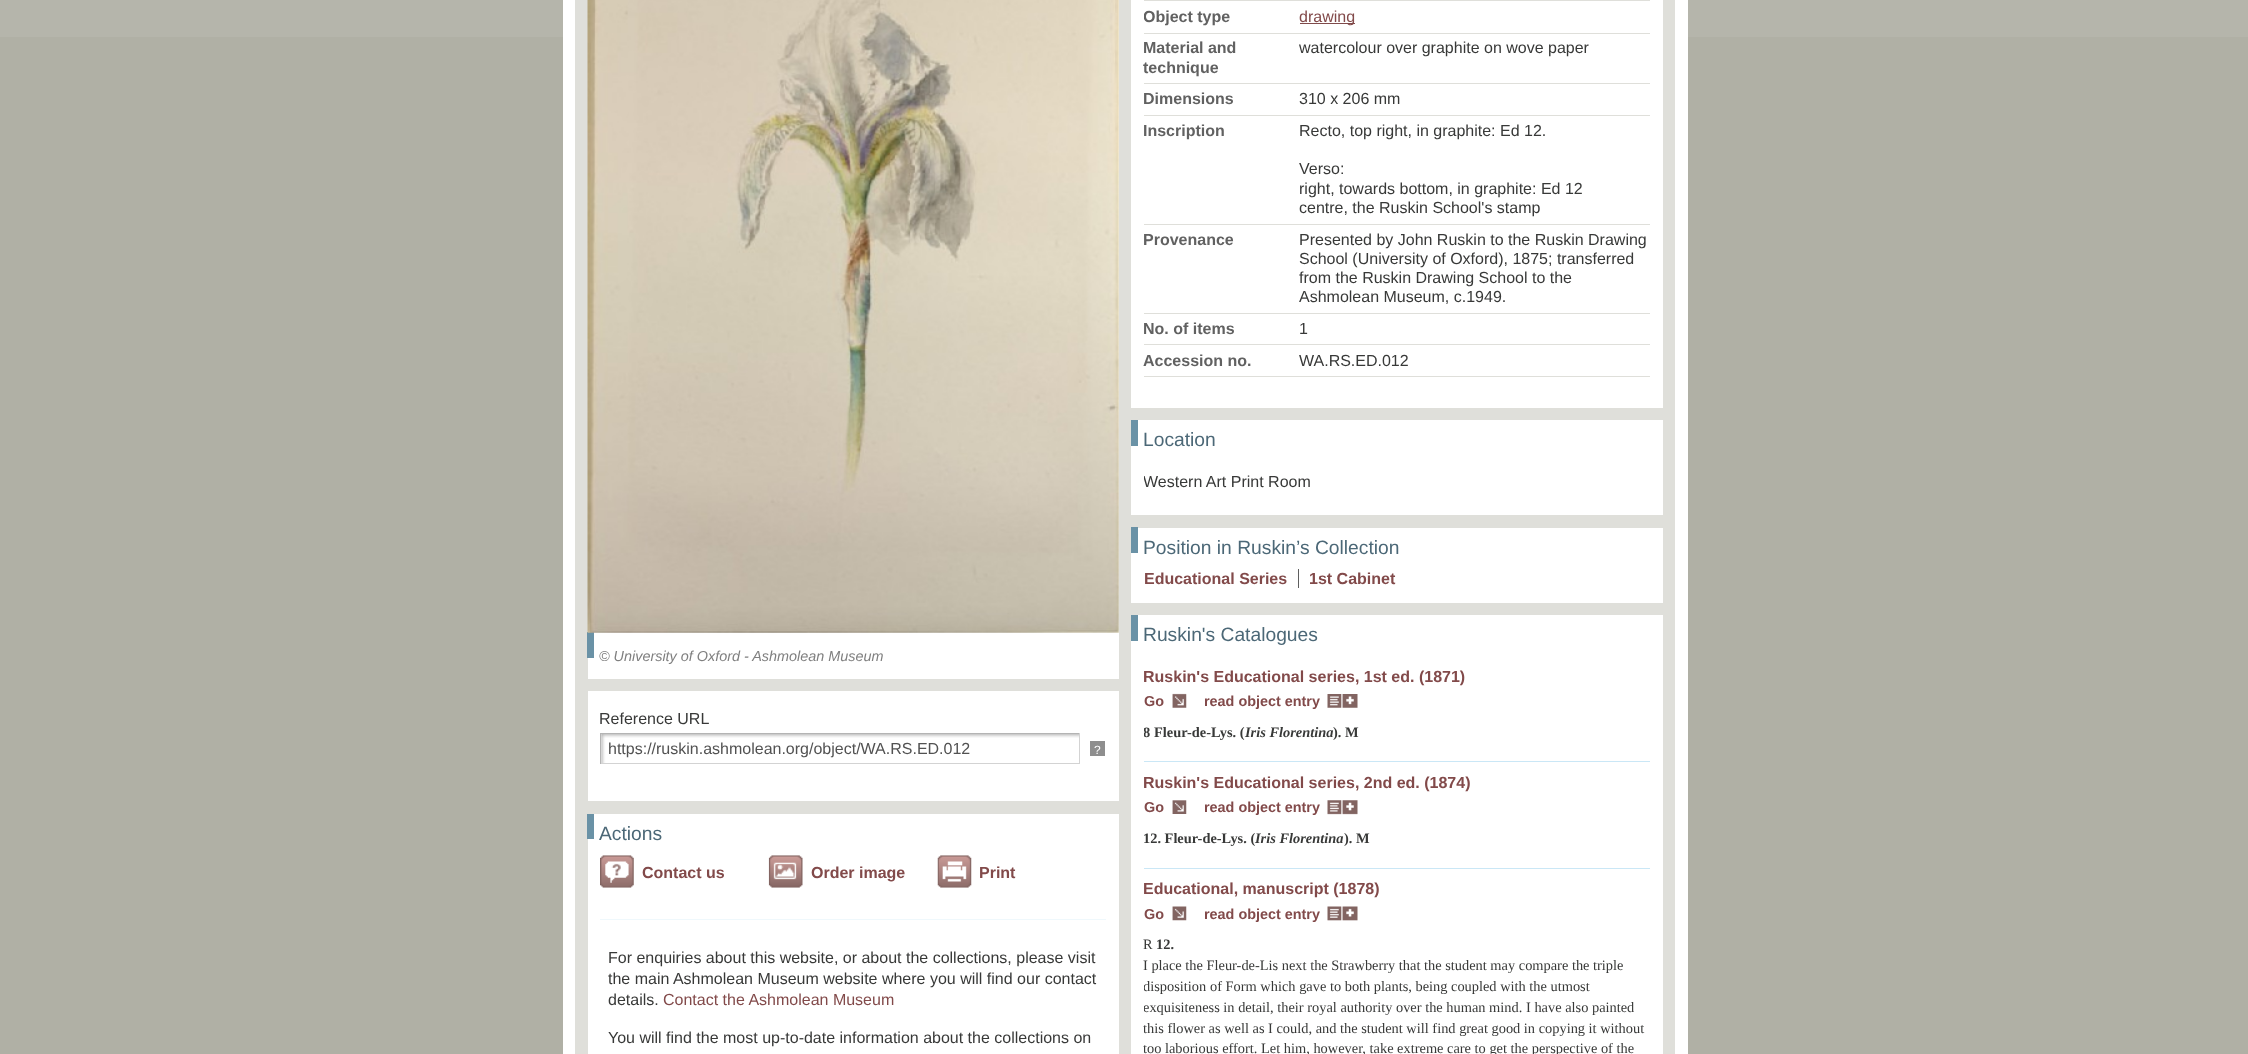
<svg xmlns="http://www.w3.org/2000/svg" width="2248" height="1054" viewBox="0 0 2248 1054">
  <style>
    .t1 { font: italic 14.4px Liberation Sans; fill: #7f7f7f; }
    .t2 { font: 16px Liberation Sans; fill: #383938; }
    .t3 { font: 16px Liberation Sans; fill: #525252; }
    .t4 { font: 12px Liberation Sans; fill: #fff; }
    .t5 { font: 19.25px Liberation Sans; fill: #4c6877; }
    .t6 { font: bold 16px Liberation Sans; fill: #824a4a; }
    .t7 { font: 16px Liberation Sans; fill: #824a4a; }
    .t8 { font: bold 16px Liberation Sans; fill: #616161; }
    .t9 { font: bold 14.4px Liberation Sans; fill: #824a4a; }
    .t10 { font: bold 14.4px Liberation Serif; fill: #383938; }
    .t11 { font: italic bold 14.4px Liberation Serif; fill: #383938; }
    .t12 { font: 14.4px Liberation Serif; fill: #383938; }
  </style>
  <defs>
    <clipPath id="clip1"><rect x="1144" y="6" width="506" height="27"/></clipPath>
    <clipPath id="clip2"><rect x="1144" y="461" width="506" height="32"/></clipPath>
    <clipPath id="clip3"><rect x="1144" y="656" width="506" height="97"/></clipPath>
    <clipPath id="clip4"><rect x="1144" y="869" width="506" height="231"/></clipPath>
  </defs>
  <rect width="100%" height="100%" fill="#b0b0a5"/>
  <rect x="0" y="0" width="2248" height="37" fill="#b5b5ab"/>
  <rect x="563" y="0" width="1125" height="1054" fill="#fff"/>
  <rect x="575" y="0" width="1100" height="1054" fill="#dfdfda"/>
  <rect x="588" y="0" width="531" height="1054" fill="#fff"/>
  <rect x="587" y="632" width="7" height="26" fill="#6a92a6"/>
  <image x="587" y="0" width="532" height="633" href="images/1.png"/>
  <rect x="588" y="679" width="531" height="12" fill="#dfdfda"/>
  <text x="599" y="661" class="t1">© University of Oxford - Ashmolean Museum</text>
  <rect x="588" y="801" width="531" height="13" fill="#dfdfda"/>
  <text x="599" y="724" class="t2">Reference URL</text>
  <image x="601" y="734" width="478" height="29" href="images/2.png"/>
  <rect x="600" y="733" width="480" height="1" fill="#b4b4b4"/>
  <rect x="1079" y="733" width="1" height="31" fill="#d3d3d3"/>
  <rect x="600" y="763" width="480" height="1" fill="#d3d3d3"/>
  <rect x="600" y="733" width="1" height="31" fill="#b4b4b4"/>
  <text x="608" y="754" class="t3">https://ruskin.ashmolean.org/object/WA.RS.ED.012</text>
  <rect x="1090" y="741" width="15" height="15" fill="#8e8e8e"/>
  <text x="1094" y="754" class="t4">?</text>
  <rect x="587" y="814" width="7" height="25" fill="#6a92a6"/>
  <text x="599" y="840" class="t5">Actions</text>
  <image x="600" y="855" width="34" height="33" href="images/3.png"/>
  <text x="642" y="878" class="t6">Contact us</text>
  <image x="768" y="855" width="35" height="33" href="images/4.png"/>
  <text x="811" y="878" class="t6">Order image</text>
  <image x="937" y="855" width="35" height="33" href="images/5.png"/>
  <text x="979" y="878" class="t6">Print</text>
  <rect x="600" y="919" width="506" height="1" fill="#eff8fc"/>
  <text x="608" y="963" class="t2">For enquiries about this website, or about the collections, please visit</text>
  <text x="608" y="984" class="t2">the main Ashmolean Museum website where you will find our contact</text>
  <text x="608" y="1005" class="t2">details.</text>
  <text x="663" y="1005" class="t7">Contact the Ashmolean Museum</text>
  <text x="608" y="1043" class="t2">You will find the most up-to-date information about the collections on</text>
  <rect x="1131" y="0" width="532" height="1054" fill="#fff"/>
  <rect x="1131" y="408" width="532" height="12" fill="#dfdfda"/>
  <rect x="1144" y="0" width="506" height="1" fill="#dfdfda"/>
  <rect x="1144" y="33" width="506" height="1" fill="#dfdfda"/>
  <g clip-path="url(#clip1)">
    <text x="1143" y="22" class="t8">Object type</text>
  </g>
  <rect x="1300" y="23" width="55" height="1" fill="#7f4a4a"/>
  <text x="1299" y="22" class="t7">drawing</text>
  <rect x="1144" y="83" width="506" height="1" fill="#dfdfda"/>
  <text x="1143" y="53" class="t8">Material and</text>
  <text x="1143" y="73" class="t8">technique</text>
  <text x="1299" y="53" class="t2">watercolour over graphite on wove paper</text>
  <rect x="1144" y="115" width="506" height="1" fill="#dfdfda"/>
  <text x="1143" y="104" class="t8">Dimensions</text>
  <text x="1299" y="104" class="t2">310 x 206 mm</text>
  <rect x="1144" y="224" width="506" height="1" fill="#dfdfda"/>
  <text x="1143" y="136" class="t8">Inscription</text>
  <text x="1299" y="136" class="t2">Recto, top right, in graphite: Ed 12.</text>
  <text x="1299" y="174" class="t2">Verso:</text>
  <text x="1299" y="194" class="t2">right, towards bottom, in graphite: Ed 12</text>
  <text x="1299" y="213" class="t2">centre, the Ruskin School's stamp</text>
  <rect x="1144" y="313" width="506" height="1" fill="#dfdfda"/>
  <text x="1143" y="245" class="t8">Provenance</text>
  <text x="1299" y="245" class="t2">Presented by John Ruskin to the Ruskin Drawing</text>
  <text x="1299" y="264" class="t2">School (University of Oxford), 1875; transferred</text>
  <text x="1299" y="283" class="t2">from the Ruskin Drawing School to the</text>
  <text x="1299" y="302" class="t2">Ashmolean Museum, c.1949.</text>
  <rect x="1144" y="344" width="506" height="1" fill="#dfdfda"/>
  <text x="1143" y="334" class="t8">No. of items</text>
  <text x="1299" y="334" class="t2">1</text>
  <rect x="1144" y="376" width="506" height="1" fill="#dfdfda"/>
  <text x="1143" y="366" class="t8">Accession no.</text>
  <text x="1299" y="366" class="t2">WA.RS.ED.012</text>
  <rect x="1131" y="420" width="7" height="26" fill="#6a92a6"/>
  <rect x="1131" y="515" width="532" height="13" fill="#dfdfda"/>
  <text x="1143" y="446" class="t5">Location</text>
  <g clip-path="url(#clip2)">
    <text x="1143" y="487" class="t2">Western Art Print Room</text>
  </g>
  <rect x="1131" y="527" width="7" height="26" fill="#6a92a6"/>
  <rect x="1131" y="603" width="532" height="12" fill="#dfdfda"/>
  <text x="1143" y="554" class="t5">Position in Ruskin’s Collection</text>
  <text x="1144" y="584" class="t6">Educational Series</text>
  <text x="1309" y="584" class="t6">1st Cabinet</text>
  <rect x="1298" y="569" width="1" height="19" fill="#5f5f5f"/>
  <rect x="1131" y="615" width="7" height="26" fill="#6a92a6"/>
  <text x="1143" y="641" class="t5">Ruskin's Catalogues</text>
  <text x="1143" y="682" class="t6">Ruskin's Educational series, 1st ed. (1871)</text>
  <text x="1144" y="706" class="t9">Go</text>
  <image x="1172" y="693" width="15" height="15" href="images/6.png"/>
  <text x="1204" y="706" class="t9">read object entry</text>
  <image x="1327" y="694" width="31" height="14" href="images/7.png"/>
  <g clip-path="url(#clip3)">
    <text x="1143" y="737" class="t10">8</text>
  </g>
  <text x="1154" y="737" class="t10">Fleur-de-Lys. (</text>
  <text x="1245" y="737" class="t11">Iris Florentina</text>
  <text x="1333" y="737" class="t10">). M</text>
  <rect x="1144" y="761" width="506" height="1" fill="#cae7f6"/>
  <text x="1143" y="788" class="t6">Ruskin's Educational series, 2nd ed. (1874)</text>
  <text x="1144" y="812" class="t9">Go</text>
  <image x="1172" y="800" width="15" height="14" href="images/8.png"/>
  <text x="1204" y="812" class="t9">read object entry</text>
  <image x="1327" y="800" width="31" height="15" href="images/9.png"/>
  <text x="1143" y="843" class="t10">12. Fleur-de-Lys. (</text>
  <text x="1255" y="843" class="t11">Iris Florentina</text>
  <text x="1344" y="843" class="t10">). M</text>
  <rect x="1144" y="868" width="506" height="1" fill="#cae7f6"/>
  <text x="1143" y="894" class="t6">Educational, manuscript (1878)</text>
  <text x="1144" y="919" class="t9">Go</text>
  <image x="1172" y="906" width="15" height="15" href="images/10.png"/>
  <text x="1204" y="919" class="t9">read object entry</text>
  <image x="1327" y="906" width="31" height="15" href="images/11.png"/>
  <text x="1143" y="949" class="t12">R</text>
  <text x="1156" y="949" class="t10">12.</text>
  <text x="1143" y="970" class="t12">I place the Fleur-de-Lis next the Strawberry that the student may compare the triple</text>
  <g clip-path="url(#clip4)">
    <text x="1143" y="991" class="t12">disposition</text>
  </g>
  <text x="1210" y="991" class="t12">of Form which gave to both plants, being coupled with the utmost</text>
  <g clip-path="url(#clip4)">
    <text x="1143" y="1012" class="t12">exquisiteness in detail, their royal authority over the human mind.</text>
  </g>
  <text x="1526" y="1012" class="t12">I have also painted</text>
  <text x="1143" y="1033" class="t12">this flower as well as I could, and the student will find great good in copying it without</text>
  <text x="1143" y="1053" class="t12">too laborious effort. Let him, however, take extreme care to get the perspective of the</text>
</svg>
